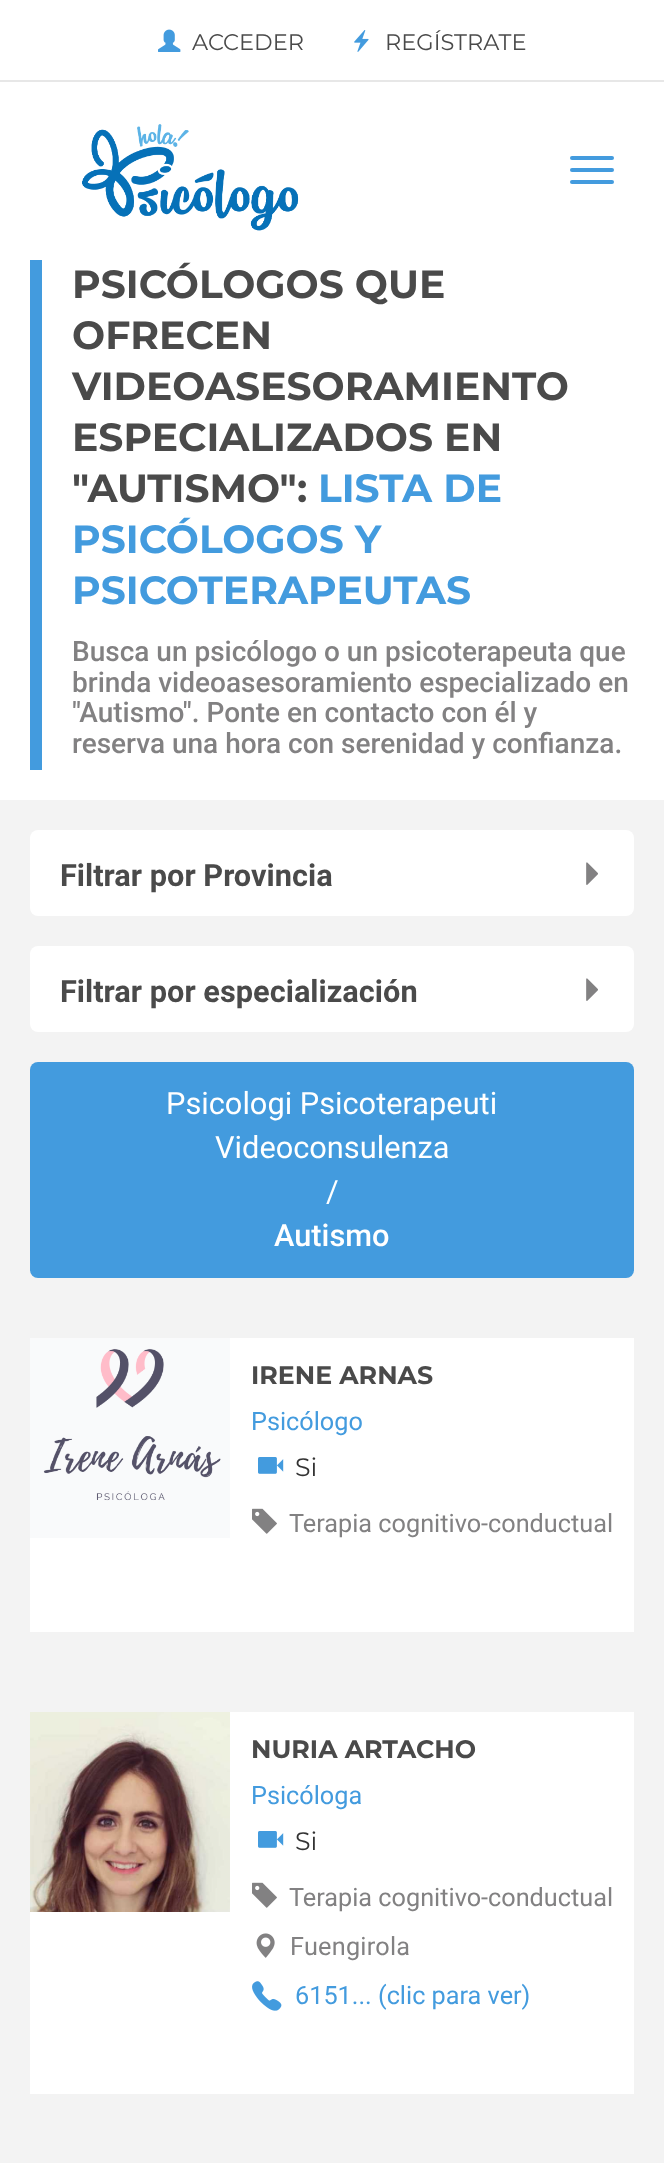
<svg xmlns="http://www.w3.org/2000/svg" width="664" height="2163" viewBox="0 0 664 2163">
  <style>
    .t1 { font: 22.5px Montserrat; fill: #4a4a4a; }
    .t2 { font: bold 39.25px Montserrat; fill: #4a4a4a; }
    .t3 { font: bold 39.25px Montserrat; fill: #439bde; }
    .t4 { font: 500 28px Roboto; fill: #828182; }
    .t5 { font: bold 30.75px Roboto; fill: #4a4a4a; }
    .t6 { font: 30.75px Roboto; fill: #fff; }
    .t7 { font: 500 30.75px Roboto; fill: #fff; }
    .t8 { font: bold 25.25px Montserrat; fill: #4a4a4a; }
    .t9 { font: 25.25px Roboto; fill: #439bde; }
    .t10 { font: 25.25px Montserrat; fill: #333; }
    .t11 { font: 25.25px Roboto; fill: #828182; }
    .t12 { font: 25.25px Roboto; letter-spacing: 0.25px; fill: #828182; }
  </style>
  <rect width="100%" height="100%" fill="#f3f3f3"/>
  <rect x="0" y="0" width="664" height="800" fill="#fff"/>
  <image x="158" y="29" width="23" height="23" href="images/1.png"/>
  <text x="192" y="50" class="t1">ACCEDER</text>
  <image x="354" y="30" width="15" height="22" href="images/2.png"/>
  <text x="385" y="50" class="t1">REGÍSTRATE</text>
  <rect x="0" y="80" width="664" height="2" fill="#e7e7e7"/>
  <image x="82" y="124" width="217" height="107" href="images/3.png"/>
  <rect x="570" y="156" width="44" height="4" rx="2" fill="#439bde"/>
  <rect x="570" y="168" width="44" height="4" rx="2" fill="#439bde"/>
  <rect x="570" y="180" width="44" height="4" rx="2" fill="#439bde"/>
  <rect x="30" y="260" width="12" height="510" fill="#439bde"/>
  <text x="72" y="298" class="t2">PSICÓLOGOS QUE</text>
  <text x="72" y="349" class="t2">OFRECEN</text>
  <text x="72" y="400" class="t2">VIDEOASESORAMIENTO</text>
  <text x="72" y="451" class="t2">ESPECIALIZADOS EN</text>
  <text x="72" y="502" class="t2">"AUTISMO":</text>
  <text x="318" y="502" class="t3">LISTA DE</text>
  <text x="72" y="553" class="t3">PSICÓLOGOS Y</text>
  <text x="72" y="604" class="t3">PSICOTERAPEUTAS</text>
  <text x="72" y="661" class="t4">Busca un psicólogo o un psicoterapeuta que</text>
  <text x="72" y="692" class="t4">brinda videoasesoramiento especializado en</text>
  <text x="72" y="722" class="t4">"Autismo". Ponte en contacto con él y</text>
  <text x="72" y="753" class="t4">reserva una hora con serenidad y confianza.</text>
  <rect x="30" y="830" width="604" height="86" rx="8" fill="#fff"/>
  <text x="60" y="886" class="t5">Filtrar por Provincia</text>
  <image x="586" y="862" width="12" height="23" href="images/4.png"/>
  <rect x="30" y="946" width="604" height="86" rx="8" fill="#fff"/>
  <text x="60" y="1002" class="t5">Filtrar por especialización</text>
  <image x="586" y="978" width="12" height="23" href="images/4.png"/>
  <rect x="30" y="1062" width="604" height="216" rx="8" fill="#439bde"/>
  <text x="166" y="1114" class="t6">Psicologi Psicoterapeuti</text>
  <text x="215" y="1158" class="t6">Videoconsulenza</text>
  <text x="326" y="1202" class="t6">/</text>
  <text x="274" y="1246" class="t7">Autismo</text>
  <rect x="30" y="1338" width="604" height="294" fill="#fff"/>
  <image x="30" y="1338" width="200" height="200" href="images/5.png"/>
  <text x="251" y="1384" class="t8">IRENE ARNAS</text>
  <text x="251" y="1430" class="t9">Psicólogo</text>
  <image x="258" y="1457" width="26" height="17" href="images/6.png"/>
  <text x="295" y="1476" class="t10">Si</text>
  <image x="252" y="1508" width="25" height="26" href="images/7.png"/>
  <text x="289" y="1532" class="t11">Terapia cognitivo-conductual</text>
  <rect x="30" y="1712" width="604" height="382" fill="#fff"/>
  <image x="30" y="1712" width="200" height="200" href="images/8.png"/>
  <text x="251" y="1758" class="t8">NURIA ARTACHO</text>
  <text x="251" y="1804" class="t9">Psicóloga</text>
  <image x="258" y="1831" width="26" height="17" href="images/6.png"/>
  <text x="295" y="1850" class="t10">Si</text>
  <image x="252" y="1882" width="25" height="26" href="images/7.png"/>
  <text x="289" y="1906" class="t11">Terapia cognitivo-conductual</text>
  <image x="256" y="1933" width="19" height="25" href="images/9.png"/>
  <text x="290" y="1955" class="t12">Fuengirola</text>
  <image x="252" y="1981" width="30" height="30" href="images/10.png"/>
  <text x="295" y="2004" class="t9">6151... (clic para ver)</text>
</svg>
